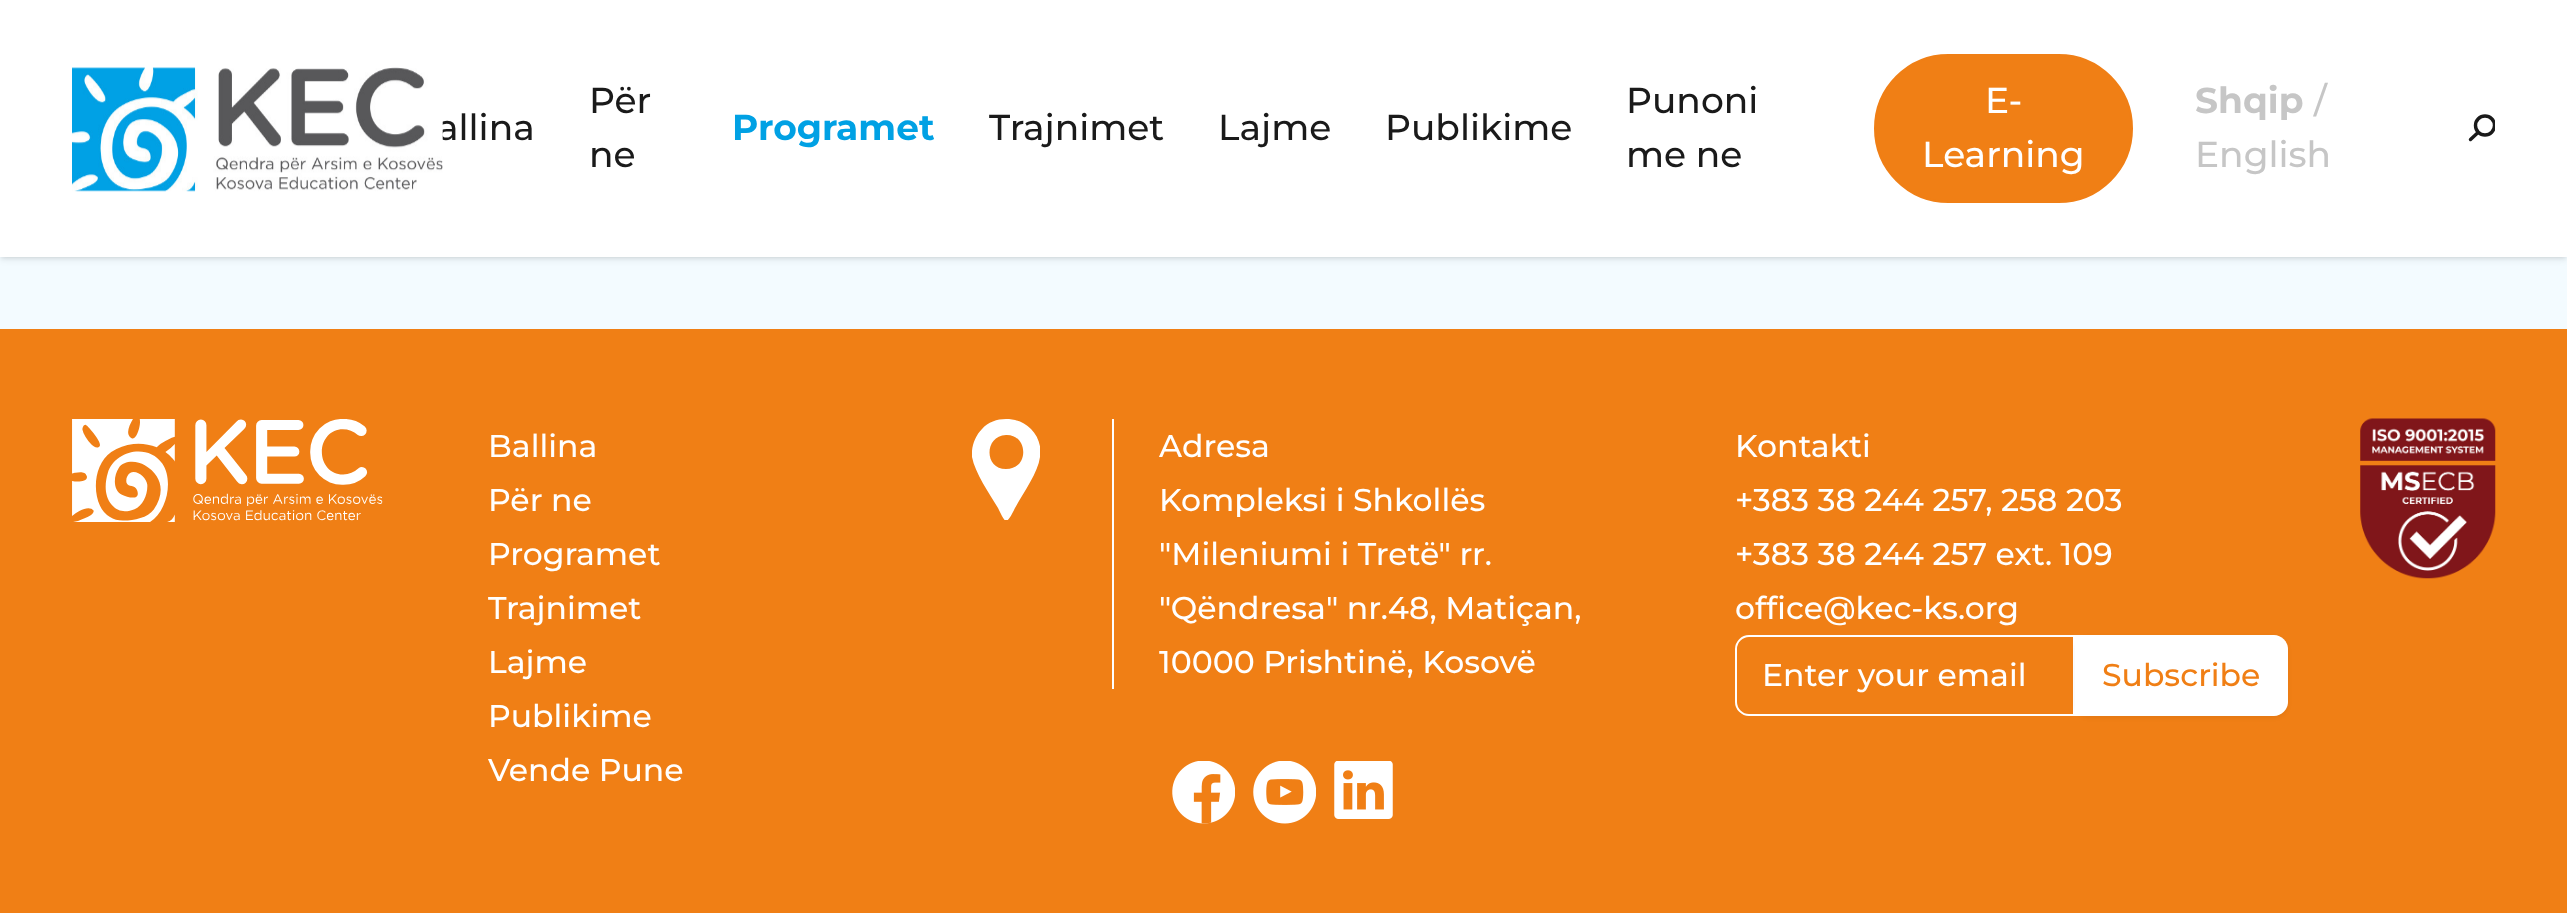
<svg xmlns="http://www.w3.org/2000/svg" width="2567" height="913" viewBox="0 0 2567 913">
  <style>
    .t1 { font: 500 36px Montserrat; fill: #1a1a1a; }
    .t2 { font: bold 36px Montserrat; fill: #00a1e4; }
    .t3 { font: 500 36px Montserrat; fill: #fff; }
    .t4 { font: bold 36px Montserrat; fill: #c6c6c6; }
    .t5 { font: 500 36px Montserrat; fill: #c6c6c6; }
    .t6 { font: 500 31.5px Montserrat; fill: #fff; }
    .t7 { font: 500 31.5px Montserrat; fill: #f07f15; }
  </style>
  <defs>
    <clipPath id="clip1"><rect x="2468" y="110" width="27" height="36"/></clipPath>
    <clipPath id="clip2"><rect x="972" y="419" width="68" height="101"/></clipPath>
  </defs>
  <rect width="100%" height="100%" fill="#f3fbff"/>
  <rect x="2" y="5" width="2563" height="252" fill="#0000001a" filter="blur(2px)"/>
  <rect x="0" y="2" width="2567" height="257" fill="#0000001a" filter="blur(3.5px)"/>
  <rect x="0" y="0" width="2567" height="257" fill="#fff"/>
  <text x="437" y="140" class="t1">allina</text>
  <image x="72" y="67" width="371" height="125" href="images/1.png"/>
  <text x="589" y="113" class="t1">Për</text>
  <text x="589" y="167" class="t1">ne</text>
  <text x="732" y="140" class="t2">Programet</text>
  <text x="989" y="140" class="t1">Trajnimet</text>
  <text x="1218" y="140" class="t1">Lajme</text>
  <text x="1385" y="140" class="t1">Publikime</text>
  <text x="1626" y="113" class="t1">Punoni</text>
  <text x="1626" y="167" class="t1">me ne</text>
  <rect x="1875" y="55" width="257" height="147" rx="73.5" fill="#f07f15" stroke="#f07f15" stroke-width="2"/>
  <text x="1985" y="113" class="t3">E-</text>
  <text x="1922" y="167" class="t3">Learning</text>
  <text x="2195" y="113" class="t4">Shqip</text>
  <text x="2314" y="113" class="t5">/</text>
  <text x="2195" y="167" class="t5">English</text>
  <g clip-path="url(#clip1)">
    <circle cx="2485" cy="125.5" r="9.5" fill="none" stroke="#1a1a1a" stroke-width="3.4"/>
  </g>
  <path d="M2477.5 133L2470.5 139.5" fill="none" stroke="#1a1a1a" stroke-width="3.4" stroke-linecap="round"/>
  <rect x="0" y="329" width="2567" height="584" fill="#f07f15"/>
  <image x="72" y="419" width="311" height="103" href="images/2.png"/>
  <text x="488" y="457" class="t6">Ballina</text>
  <text x="488" y="511" class="t6">Për ne</text>
  <text x="488" y="565" class="t6">Programet</text>
  <text x="488" y="619" class="t6">Trajnimet</text>
  <text x="488" y="673" class="t6">Lajme</text>
  <text x="488" y="727" class="t6">Publikime</text>
  <text x="488" y="781" class="t6">Vende Pune</text>
  <g clip-path="url(#clip2)">
    <path d="M1006 419C997 419 988 422 982 429C975 436 971 447 972 457C975 473 989 493 998 508C999 510 1004 521 1006 521C1009 521 1014 510 1015 508C1023 493 1038 473 1040 457C1042 447 1038 436 1031 429C1024 422 1015 419 1006 419ZM1006 469C984 469 984 436 1006 435C1028 434 1030 469 1006 469Z" fill="#fff"/>
  </g>
  <rect x="1112" y="419" width="2" height="270" fill="#fff"/>
  <text x="1159" y="457" class="t6">Adresa</text>
  <text x="1159" y="511" class="t6">Kompleksi i Shkollës</text>
  <text x="1159" y="565" class="t6">"Mileniumi i Tretë" rr.</text>
  <text x="1159" y="619" class="t6">"Qëndresa" nr.48, Matiçan,</text>
  <text x="1159" y="673" class="t6">10000 Prishtinë, Kosovë</text>
  <image x="1172" y="761" width="63" height="63" href="images/3.png"/>
  <image x="1253" y="761" width="63" height="63" href="images/4.png"/>
  <image x="1334" y="761" width="59" height="58" href="images/5.png"/>
  <text x="1735" y="457" class="t6">Kontakti</text>
  <text x="1735" y="511" class="t6">+383 38 244 257, 258 203</text>
  <text x="1735" y="565" class="t6">+383 38 244 257 ext. 109</text>
  <text x="1735" y="619" class="t6">office@kec-ks.org</text>
  <path d="M1749 636H2074V715H1749C1742 715 1736 709 1736 702V649C1736 642 1742 636 1749 636Z" fill="none" stroke="#fff" stroke-width="2"/>
  <text x="1762" y="686" class="t6">Enter your email</text>
  <rect x="2075" y="637" width="213" height="81" rx="14" fill="#0000000d" filter="blur(2px)"/>
  <path d="M2075 635H2274C2281.5 635 2288 641.5 2288 649V702C2288 709.5 2281.5 716 2274 716H2075Z" fill="#fff"/>
  <text x="2102" y="686" class="t7">Subscribe</text>
  <image x="2360" y="418" width="136" height="161" href="images/6.png"/>
</svg>
